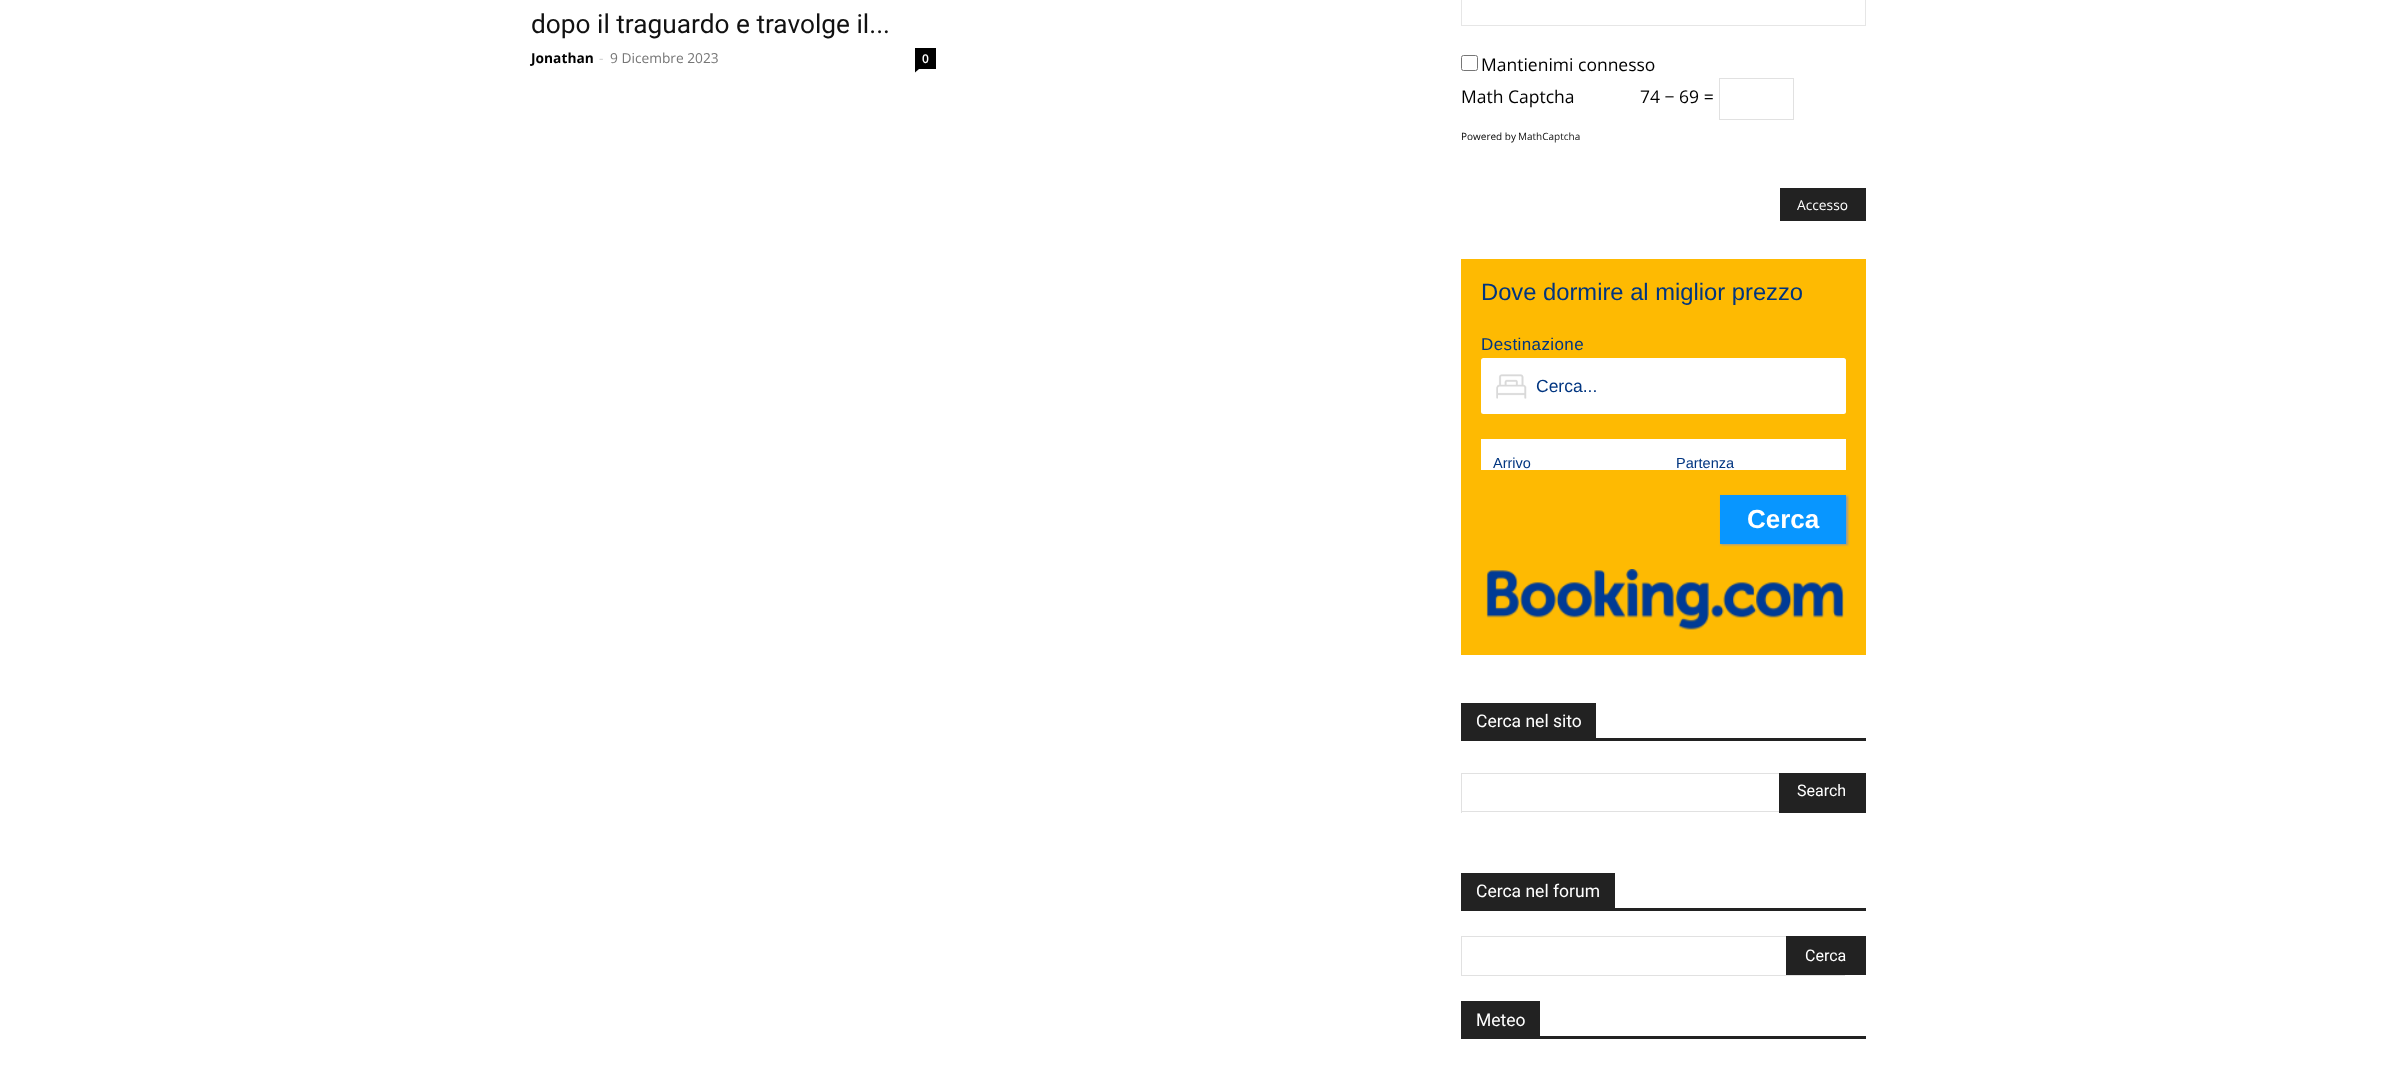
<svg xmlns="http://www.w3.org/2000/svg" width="2396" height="1085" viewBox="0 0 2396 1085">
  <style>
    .t1 { font: 26.25px Roboto; fill: #111; }
    .t2 { font: bold 13.75px Open Sans; fill: #000; }
    .t3 { font: 13.75px Open Sans; fill: #ccc; }
    .t4 { font: 13.75px Open Sans; fill: #767676; }
    .t5 { font: 600 12px Open Sans; fill: #fff; }
    .t6 { font: 17.5px Open Sans; fill: #000; }
    .t7 { font: 10px Open Sans; fill: #000; }
    .t8 { font: 10px Open Sans; fill: #111; }
    .t9 { font: 13.75px Open Sans; fill: #fff; }
    .t10 { font: 23.75px Liberation Sans; fill: #003580; }
    .t11 { font: 17px Liberation Sans; letter-spacing: 0.4px; fill: #003580; }
    .t12 { font: 17.5px Liberation Sans; fill: #003580; }
    .t13 { font: 14.5px Liberation Sans; fill: #003580; }
    .t14 { font: bold 26px Liberation Sans; fill: #fff; }
    .t15 { font: 17.5px Roboto; fill: #fff; }
    .t16 { font: 16px Roboto; fill: #fff; }
  </style>
  <rect width="100%" height="100%" fill="#fff"/>
  <text x="531" y="33" class="t1">dopo il traguardo e travolge il...</text>
  <text x="531" y="63" class="t2">Jonathan</text>
  <text x="599" y="63" class="t3">-</text>
  <text x="610" y="63" class="t4">9 Dicembre 2023</text>
  <rect x="915" y="48" width="21" height="21" fill="#000"/>
  <text x="922" y="63" class="t5">0</text>
  <path d="M915 69H919L915 72.5Z" fill="#000"/>
  <rect x="1461.5" y="-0.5" width="404" height="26" fill="none" stroke="#e6e6e6"/>
  <rect x="1461.5" y="55.5" width="16" height="15" rx="2" fill="none" stroke="#767676"/>
  <text x="1481" y="71" class="t6">Mantienimi connesso</text>
  <text x="1461" y="103" class="t6">Math Captcha</text>
  <text x="1640" y="103" class="t6">74 − 69 =</text>
  <rect x="1719.5" y="78.5" width="74" height="41" fill="none" stroke="#e1e1e1"/>
  <text x="1461" y="140" class="t7">Powered by</text>
  <text x="1518" y="140" class="t8">MathCaptcha</text>
  <rect x="1780" y="188" width="86" height="33" fill="#222"/>
  <text x="1797" y="210" class="t9">Accesso</text>
  <rect x="1461" y="259" width="405" height="396" fill="#feba02"/>
  <text x="1481" y="300" class="t10">Dove dormire al miglior prezzo</text>
  <text x="1481" y="350" class="t11">Destinazione</text>
  <rect x="1481" y="358" width="365" height="56" rx="2.5" fill="#fff"/>
  <image x="1496" y="374" width="31" height="25" href="images/1.png"/>
  <text x="1536" y="392" class="t12">Cerca...</text>
  <rect x="1481" y="439" width="365" height="31" fill="#fff"/>
  <text x="1493" y="468" class="t13">Arrivo</text>
  <text x="1676" y="468" class="t13">Partenza</text>
  <rect x="1721" y="496" width="127" height="49" fill="#999" filter="blur(1px)"/>
  <rect x="1720" y="495" width="126" height="49" fill="#0896ff"/>
  <text x="1747" y="528" class="t14">Cerca</text>
  <image x="1486" y="569" width="358" height="61" href="images/2.png"/>
  <rect x="1461" y="738" width="405" height="3" fill="#222"/>
  <rect x="1461" y="703" width="135" height="35" fill="#222"/>
  <text x="1476" y="727" class="t15">Cerca nel sito</text>
  <rect x="1461" y="773" width="318" height="1" fill="#e1e1e1"/>
  <rect x="1461" y="811" width="318" height="1" fill="#e1e1e1"/>
  <rect x="1461" y="773" width="1" height="40" fill="#e1e1e1"/>
  <rect x="1779" y="773" width="87" height="40" fill="#222"/>
  <text x="1797" y="796" class="t16">Search</text>
  <rect x="1461" y="908" width="405" height="3" fill="#222"/>
  <rect x="1461" y="873" width="154" height="35" fill="#222"/>
  <text x="1476" y="897" class="t15">Cerca nel forum</text>
  <rect x="1461.5" y="936.5" width="383" height="39" fill="none" stroke="#e1e1e1"/>
  <rect x="1786" y="936" width="80" height="39" fill="#222"/>
  <text x="1805" y="961" class="t16">Cerca</text>
  <rect x="1461" y="1036" width="405" height="3" fill="#222"/>
  <rect x="1461" y="1001" width="79" height="35" fill="#222"/>
  <text x="1476" y="1026" class="t15">Meteo</text>
</svg>
